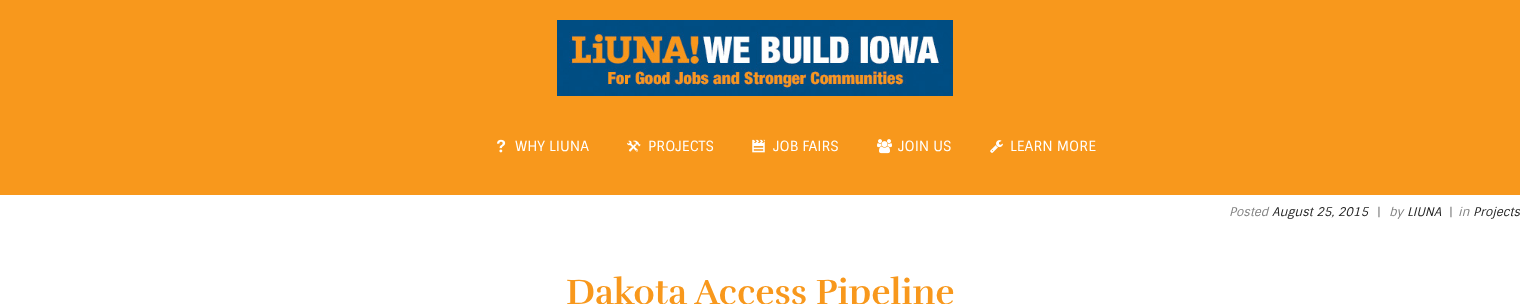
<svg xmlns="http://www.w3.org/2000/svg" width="1520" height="304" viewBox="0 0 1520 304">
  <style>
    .t1 { font: 14px Sintony; fill: #fff; }
    .t2 { font: italic 12px Sintony; fill: #808080; }
    .t3 { font: italic 12px Sintony; fill: #222; }
    .t4 { font: 12px Sintony; fill: #808080; }
    .t5 { font: bold 36px Rufina; fill: #f8981c; }
  </style>
  <rect width="100%" height="100%" fill="#f8981c"/>
  <image x="557" y="20" width="396" height="76" href="images/1.png"/>
  <image x="497" y="139" width="9" height="14" href="images/2.png"/>
  <text x="515" y="151" class="t1">WHY LIUNA</text>
  <image x="627" y="140" width="14" height="12" href="images/3.png"/>
  <text x="648" y="151" class="t1">PROJECTS</text>
  <image x="752" y="139" width="13" height="14" href="images/4.png"/>
  <text x="773" y="151" class="t1">JOB FAIRS</text>
  <image x="877" y="139" width="15" height="15" href="images/5.png"/>
  <text x="898" y="151" class="t1">JOIN US</text>
  <image x="990" y="140" width="13" height="13" href="images/6.png"/>
  <text x="1010" y="151" class="t1">LEARN MORE</text>
  <rect x="0" y="195" width="1520" height="109" fill="#fff"/>
  <text x="1229" y="216" class="t2">Posted</text>
  <text x="1272" y="216" class="t3">August 25, 2015</text>
  <text x="1377" y="216" class="t4">|</text>
  <text x="1389" y="216" class="t2">by</text>
  <text x="1407" y="216" class="t3">LIUNA</text>
  <text x="1449" y="216" class="t4">|</text>
  <text x="1458" y="216" class="t2">in</text>
  <text x="1473" y="216" class="t3">Projects</text>
  <text x="566" y="304" class="t5">Dakota Access Pipeline</text>
</svg>
